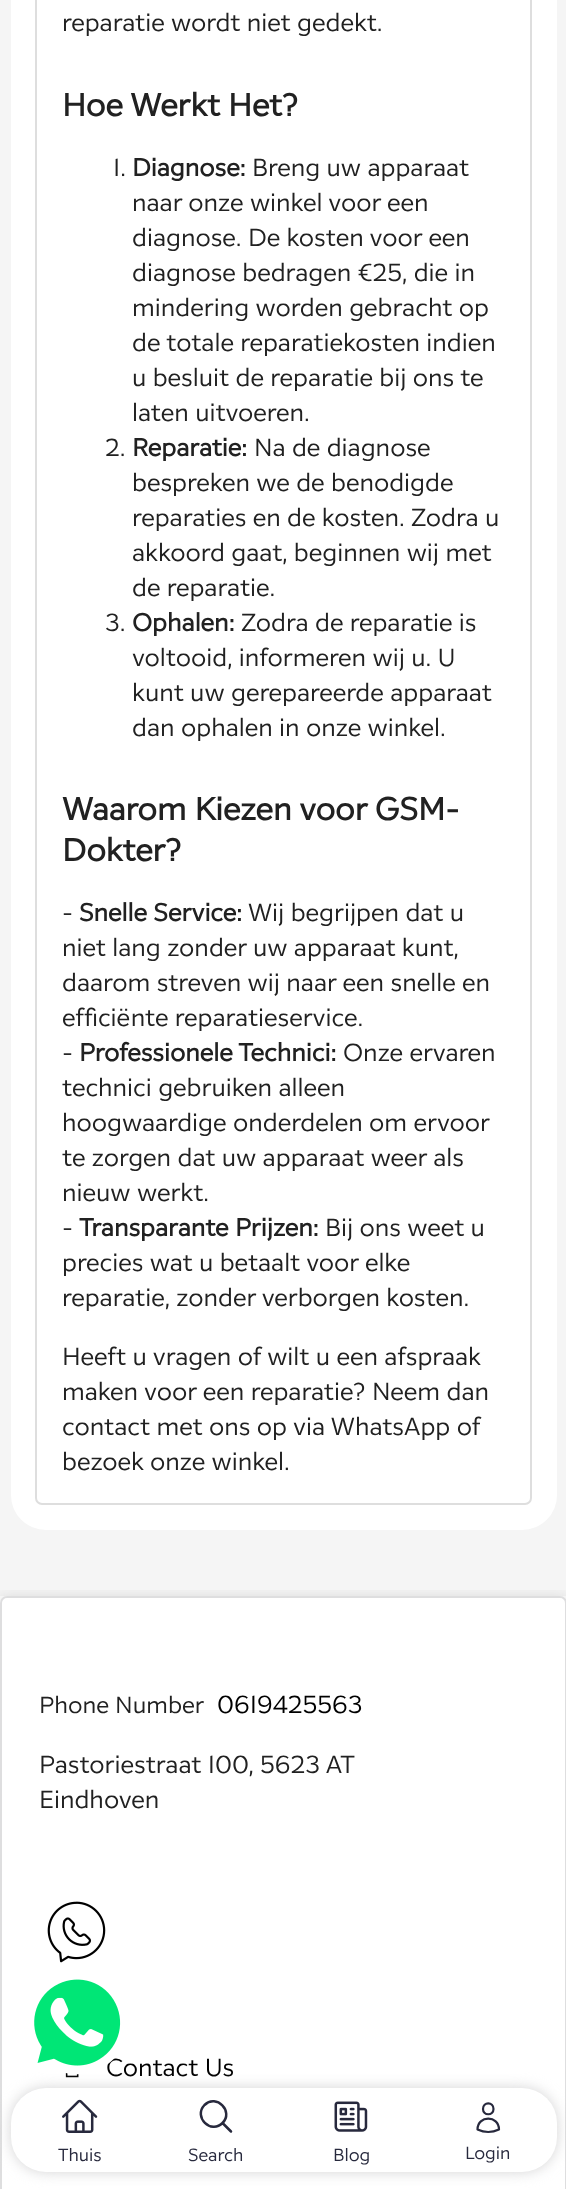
<svg xmlns="http://www.w3.org/2000/svg" width="566" height="2189" viewBox="0 0 566 2189">
  <style>
    .t1 { font: 24.5px Inter; fill: #212121; }
    .t2 { font: bold 31.5px Inter; fill: #212121; }
    .t3 { font: bold 24.5px Inter; fill: #212121; }
    .t4 { font: 23.25px Inter; fill: #212121; }
    .t5 { font: 24.5px Inter; fill: #000; }
    .t6 { font: 17.5px Inter; fill: #27293d; }
  </style>
  <defs>
    <clipPath id="clip1"><rect x="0" y="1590" width="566" height="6"/></clipPath>
  </defs>
  <rect width="100%" height="100%" fill="#f5f5f5"/>
  <rect x="11" y="-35" width="546" height="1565" rx="35" fill="#fff"/>
  <rect x="36" y="-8" width="495" height="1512" rx="6" fill="none" stroke="#dedede" stroke-width="2"/>
  <text x="62" y="31" class="t1">reparatie wordt niet gedekt.</text>
  <text x="62" y="116" class="t2">Hoe Werkt Het?</text>
  <text x="113" y="176" class="t1">1.</text>
  <text x="132" y="176" class="t3">Diagnose:</text>
  <text x="252" y="176" class="t1">Breng uw apparaat</text>
  <text x="132" y="211" class="t1">naar onze winkel voor een</text>
  <text x="132" y="246" class="t1">diagnose. De kosten voor een</text>
  <text x="132" y="281" class="t1">diagnose bedragen €25, die in</text>
  <text x="132" y="316" class="t1">mindering worden gebracht op</text>
  <text x="132" y="351" class="t1">de totale reparatiekosten indien</text>
  <text x="132" y="386" class="t1">u besluit de reparatie bij ons te</text>
  <text x="132" y="421" class="t1">laten uitvoeren.</text>
  <text x="105" y="456" class="t1">2.</text>
  <text x="132" y="456" class="t3">Reparatie:</text>
  <text x="254" y="456" class="t1">Na de diagnose</text>
  <text x="132" y="491" class="t1">bespreken we de benodigde</text>
  <text x="132" y="526" class="t1">reparaties en de kosten. Zodra u</text>
  <text x="132" y="561" class="t1">akkoord gaat, beginnen wij met</text>
  <text x="132" y="596" class="t1">de reparatie.</text>
  <text x="105" y="631" class="t1">3.</text>
  <text x="132" y="631" class="t3">Ophalen:</text>
  <text x="241" y="631" class="t1">Zodra de reparatie is</text>
  <text x="132" y="666" class="t1">voltooid, informeren wij u. U</text>
  <text x="132" y="701" class="t1">kunt uw gerepareerde apparaat</text>
  <text x="132" y="736" class="t1">dan ophalen in onze winkel.</text>
  <text x="62" y="820" class="t2">Waarom Kiezen voor GSM-</text>
  <text x="62" y="861" class="t2">Dokter?</text>
  <text x="62" y="921" class="t1">-</text>
  <text x="79" y="921" class="t3">Snelle Service:</text>
  <text x="248" y="921" class="t1">Wij begrijpen dat u</text>
  <text x="62" y="956" class="t1">niet lang zonder uw apparaat kunt,</text>
  <text x="62" y="991" class="t1">daarom streven wij naar een snelle en</text>
  <text x="62" y="1026" class="t1">efficiënte reparatieservice.</text>
  <text x="62" y="1061" class="t1">-</text>
  <text x="79" y="1061" class="t3">Professionele Technici:</text>
  <text x="343" y="1061" class="t1">Onze ervaren</text>
  <text x="62" y="1096" class="t1">technici gebruiken alleen</text>
  <text x="62" y="1131" class="t1">hoogwaardige onderdelen om ervoor</text>
  <text x="62" y="1166" class="t1">te zorgen dat uw apparaat weer als</text>
  <text x="62" y="1201" class="t1">nieuw werkt.</text>
  <text x="62" y="1236" class="t1">-</text>
  <text x="79" y="1236" class="t3">Transparante Prijzen:</text>
  <text x="325" y="1236" class="t1">Bij ons weet u</text>
  <text x="62" y="1271" class="t1">precies wat u betaalt voor elke</text>
  <text x="62" y="1306" class="t1">reparatie, zonder verborgen kosten.</text>
  <text x="62" y="1365" class="t1">Heeft u vragen of wilt u een afspraak</text>
  <text x="62" y="1400" class="t1">maken voor een reparatie? Neem dan</text>
  <text x="62" y="1435" class="t1">contact met ons op via WhatsApp of</text>
  <text x="62" y="1470" class="t1">bezoek onze winkel.</text>
  <g clip-path="url(#clip1)">
    <rect x="0" y="1596" width="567" height="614" fill="#0f0f0f1c" filter="blur(7px)"/>
  </g>
  <rect x="0" y="1596" width="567" height="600" rx="7" fill="#fff"/>
  <rect x="1" y="1597" width="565" height="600" rx="6" fill="none" stroke="#22242626" stroke-width="2"/>
  <text x="39" y="1713" class="t4">Phone Number</text>
  <text x="217" y="1713" class="t5">0619425563</text>
  <text x="39" y="1773" class="t1">Pastoriestraat 100, 5623 AT</text>
  <text x="39" y="1808" class="t1">Eindhoven</text>
  <image x="47" y="1901" width="59" height="62" href="images/1.png"/>
  <image x="65" y="2072" width="14" height="6" href="images/2.png"/>
  <text x="106" y="2076" class="t5">Contact Us</text>
  <rect x="11" y="2088" width="546" height="84" rx="35" fill="#d4d4d5" filter="blur(7px)"/>
  <rect x="11" y="2088" width="546" height="84" rx="35" fill="#fff"/>
  <image x="62" y="2099" width="36" height="34" href="images/3.png"/>
  <text x="58" y="2161" class="t6">Thuis</text>
  <path d="M231 2131.5L222.5 2123M222.5 2123C234 2111.5 216.5 2093.5 204.5 2105C193 2117 211 2134.5 222.5 2123Z" fill="none" stroke="#27293d" stroke-width="2.5" stroke-linecap="round" stroke-linejoin="round"/>
  <text x="188" y="2161" class="t6">Search</text>
  <image x="334" y="2101" width="34" height="31" href="images/4.png"/>
  <text x="333" y="2161" class="t6">Blog</text>
  <path d="M493.5 2109C493.5 2116 483 2116 483 2109C483 2101.5 493.5 2101.5 493.5 2109ZM477.5 2129.5C477.5 2115 499 2115 499 2129.5C492.5 2132.5 484 2132.5 477.5 2129.5Z" fill="none" stroke="#27293d" stroke-width="2.2" stroke-linecap="round" stroke-linejoin="round"/>
  <text x="465" y="2159" class="t6">Login</text>
  <image x="34" y="1979" width="87" height="96" href="images/5.png"/>
</svg>
